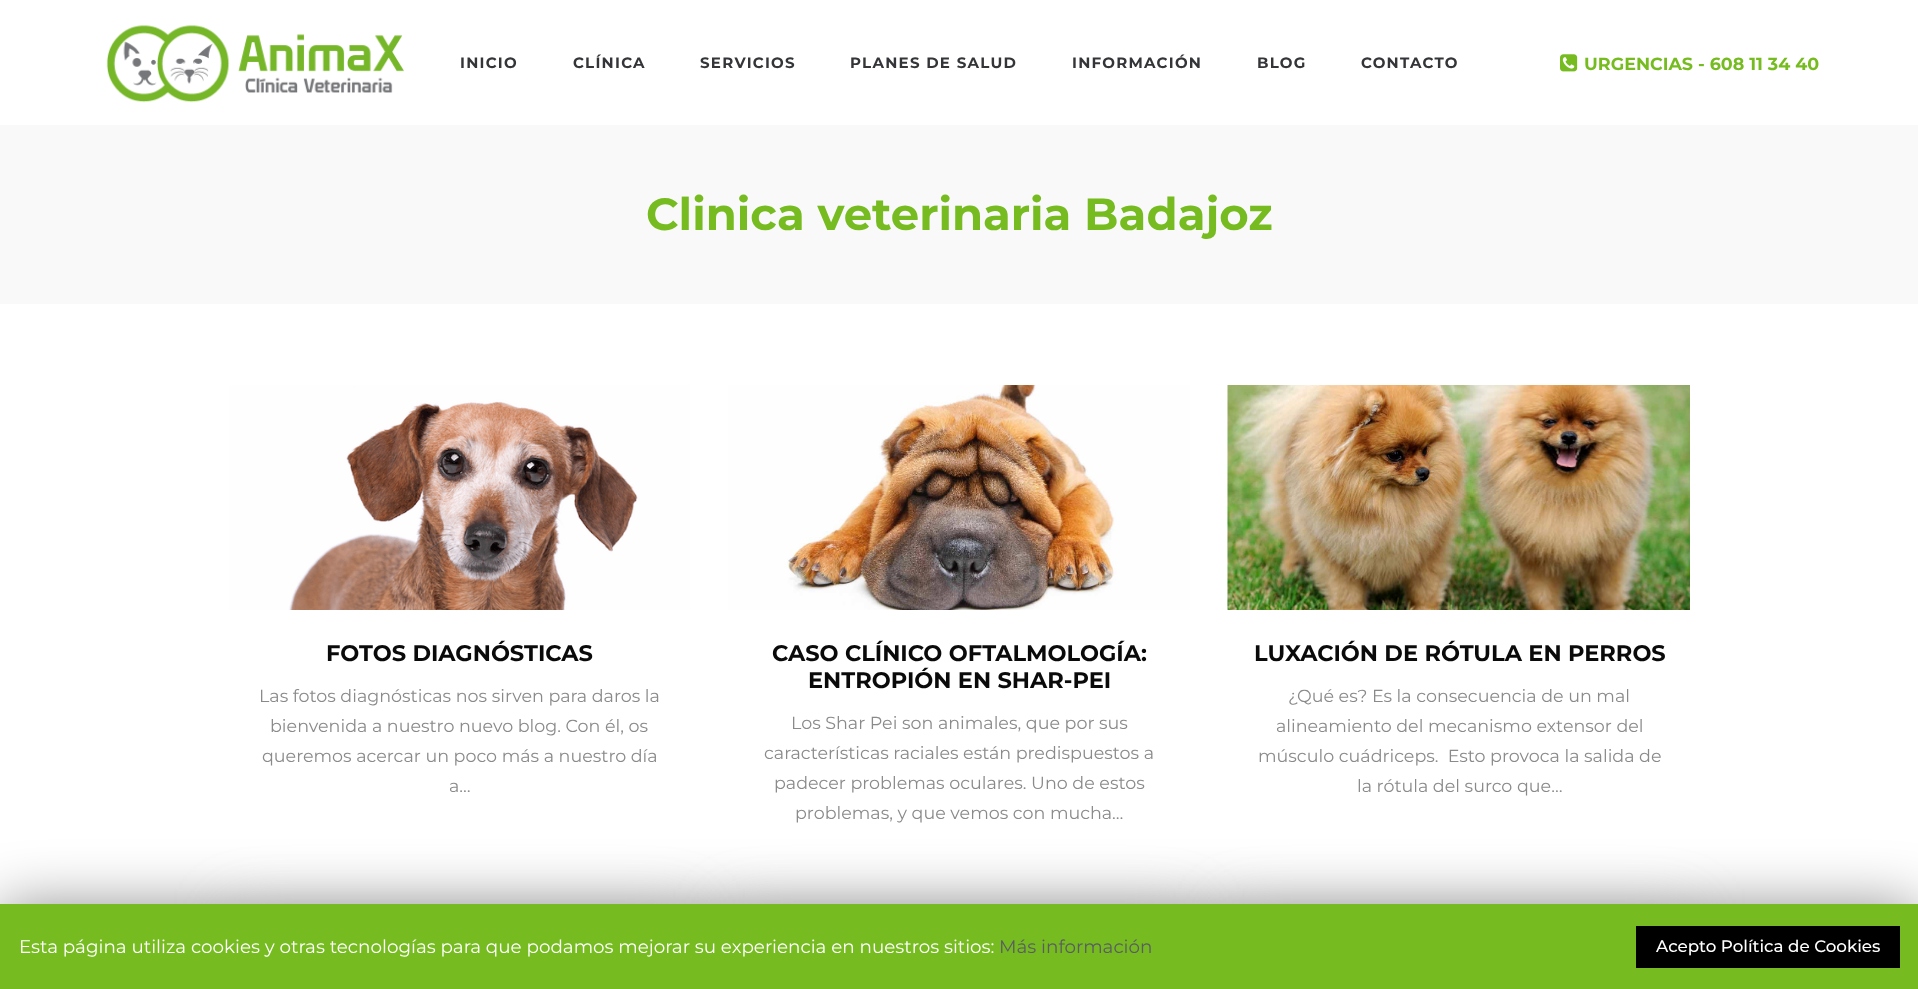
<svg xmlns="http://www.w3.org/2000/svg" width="1918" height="989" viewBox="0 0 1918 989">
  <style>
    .t1 { font: bold 15px Montserrat; letter-spacing: 1.25px; fill: #343538; }
    .t2 { font: bold 17.5px Montserrat; fill: #76bc21; }
    .t3 { font: bold 45px Montserrat; fill: #76bc21; }
    .t4 { font: bold 22.5px Montserrat; fill: #0a0a0a; }
    .t5 { font: 17.5px Montserrat; fill: #8a8a8a; }
    .t6 { font: 18.33px Montserrat; fill: #fff; }
    .t7 { font: 18.33px Montserrat; fill: #5a5c64; }
    .t8 { font: 500 16.7px Montserrat; fill: #fff; }
  </style>
  <rect width="100%" height="100%" fill="#fff"/>
  <image x="106" y="25" width="298" height="78" href="images/1.png"/>
  <text x="460" y="68" class="t1">INICIO</text>
  <text x="573" y="68" class="t1">CLÍNICA</text>
  <text x="700" y="68" class="t1">SERVICIOS</text>
  <text x="850" y="68" class="t1">PLANES DE SALUD</text>
  <text x="1072" y="68" class="t1">INFORMACIÓN</text>
  <text x="1257" y="68" class="t1">BLOG</text>
  <text x="1361" y="68" class="t1">CONTACTO</text>
  <image x="1560" y="54" width="18" height="18" href="images/2.png"/>
  <text x="1584" y="70" class="t2">URGENCIAS - 608 11 34 40</text>
  <rect x="0" y="125" width="1918" height="179" fill="#f9f9f9"/>
  <text x="646" y="230" class="t3">Clinica veterinaria Badajoz</text>
  <image x="229" y="385" width="461" height="225" href="images/3.png"/>
  <text x="326" y="661" class="t4">FOTOS DIAGNÓSTICAS</text>
  <text x="259" y="702" class="t5">Las fotos diagnósticas nos sirven para daros la</text>
  <text x="270" y="732" class="t5">bienvenida a nuestro nuevo blog. Con él, os</text>
  <text x="262" y="762" class="t5">queremos acercar un poco más a nuestro día</text>
  <text x="449" y="792" class="t5">a…</text>
  <image x="728" y="385" width="462" height="225" href="images/4.png"/>
  <text x="772" y="661" class="t4">CASO CLÍNICO OFTALMOLOGÍA:</text>
  <text x="808" y="688" class="t4">ENTROPIÓN EN SHAR-PEI</text>
  <text x="791" y="729" class="t5">Los Shar Pei son animales, que por sus</text>
  <text x="764" y="759" class="t5">características raciales están predispuestos a</text>
  <text x="774" y="789" class="t5">padecer problemas oculares. Uno de estos</text>
  <text x="795" y="819" class="t5">problemas, y que vemos con mucha…</text>
  <image x="1227" y="385" width="463" height="225" href="images/5.png"/>
  <text x="1254" y="661" class="t4">LUXACIÓN DE RÓTULA EN PERROS</text>
  <text x="1288" y="702" class="t5">¿Qué es? Es la consecuencia de un mal</text>
  <text x="1276" y="732" class="t5">alineamiento del mecanismo extensor del</text>
  <text x="1258" y="762" class="t5" xml:space="preserve">músculo cuádriceps.  Esto provoca la salida de</text>
  <text x="1357" y="792" class="t5">la rótula del surco que…</text>
  <rect x="229" y="909" width="461" height="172" fill="#c0c0c03d" filter="blur(30.5px)"/>
  <rect x="728" y="909" width="462" height="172" fill="#c0c0c03d" filter="blur(30.5px)"/>
  <rect x="1228" y="909" width="462" height="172" fill="#c0c0c03d" filter="blur(30.5px)"/>
  <rect x="0" y="910" width="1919" height="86" fill="#00000080" filter="blur(31px)"/>
  <rect x="0" y="904" width="1918" height="85" fill="#76bc21"/>
  <text x="19" y="953" class="t6">Esta página utiliza cookies y otras tecnologías para que podamos mejorar su experiencia en nuestros sitios:</text>
  <text x="999" y="953" class="t7">Más información</text>
  <rect x="1636" y="926" width="264" height="42" fill="#000"/>
  <text x="1656" y="952" class="t8">Acepto Política de Cookies</text>
</svg>
